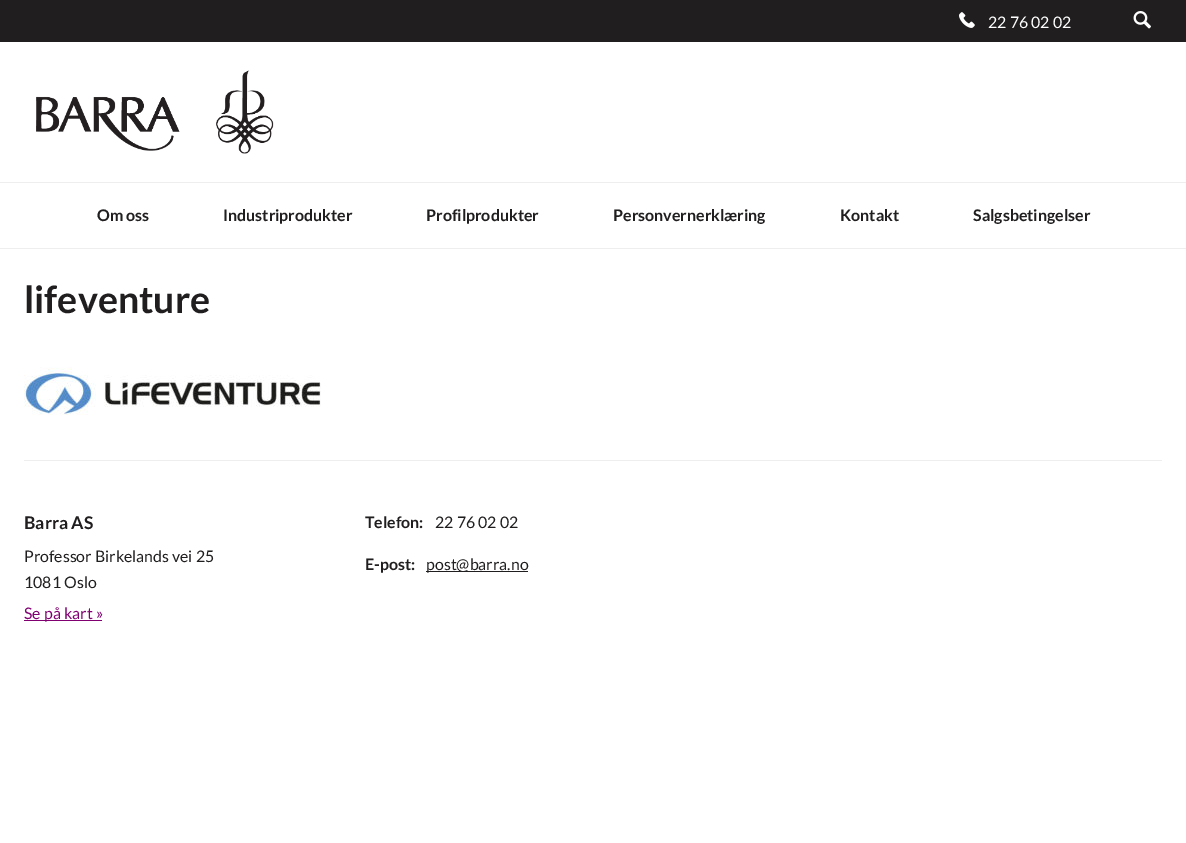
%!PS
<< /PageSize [1186 843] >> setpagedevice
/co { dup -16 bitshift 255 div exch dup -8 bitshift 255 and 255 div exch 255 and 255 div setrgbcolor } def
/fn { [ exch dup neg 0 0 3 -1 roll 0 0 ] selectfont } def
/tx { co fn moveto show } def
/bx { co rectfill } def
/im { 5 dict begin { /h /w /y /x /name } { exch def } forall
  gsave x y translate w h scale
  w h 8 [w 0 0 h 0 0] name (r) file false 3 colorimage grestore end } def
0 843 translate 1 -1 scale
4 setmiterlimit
0 0 1186 843 16#FFFFFF bx
0 0 1186 42 16#201E1F bx
(media/1.raw) 959 12 16 16 im
(media/2.raw) 1133 11 18 18 im
(media/3.raw) 36 70 238 84 im
0 182 1186 1 16#EEEEEE bx
0 248 1186 1 16#EEEEEE bx
(media/4.raw) 24 367 297 48 im
24 460 1138 1 16#EEEEEE bx
24 620 78 1 16#800071 bx
426 571 102 1 16#201E1F bx
(22 76 02 02) 988 28 /Lato-Regular 15.9 16#FFFFFF tx
(Om oss) 97 221 /Lato-Bold 16 16#201E1F tx
(Industriprodukter) 223 221 /Lato-Bold 16 16#201E1F tx
(Profilprodukter) 426 221 /Lato-Bold 16 16#201E1F tx
(Personvernerklæring) 613 221 /Lato-Bold 16 16#201E1F tx
(Kontakt) 840 221 /Lato-Bold 16 16#201E1F tx
(Salgsbetingelser) 973 221 /Lato-Bold 16 16#201E1F tx
(lifeventure) 24 313 /Lato-Bold 37.5 16#201E1F tx
(Barra AS) 24 529 /Lato-Bold 17.5 16#201E1F tx
(Professor Birkelands vei 25) 24 562 /Lato-Regular 15.9 16#201E1F tx
(1081 Oslo) 24 588 /Lato-Regular 15.9 16#201E1F tx
(Se på kart ») 24 619 /Lato-Regular 15.9 16#800071 tx
(Telefon:) 365 528 /Lato-Bold 15.9 16#201E1F tx
(22 76 02 02) 435 528 /Lato-Regular 15.9 16#201E1F tx
(E-post:) 365 570 /Lato-Bold 15.9 16#201E1F tx
(post@barra.no) 426 570 /Lato-Regular 15.9 16#201E1F tx
showpage
